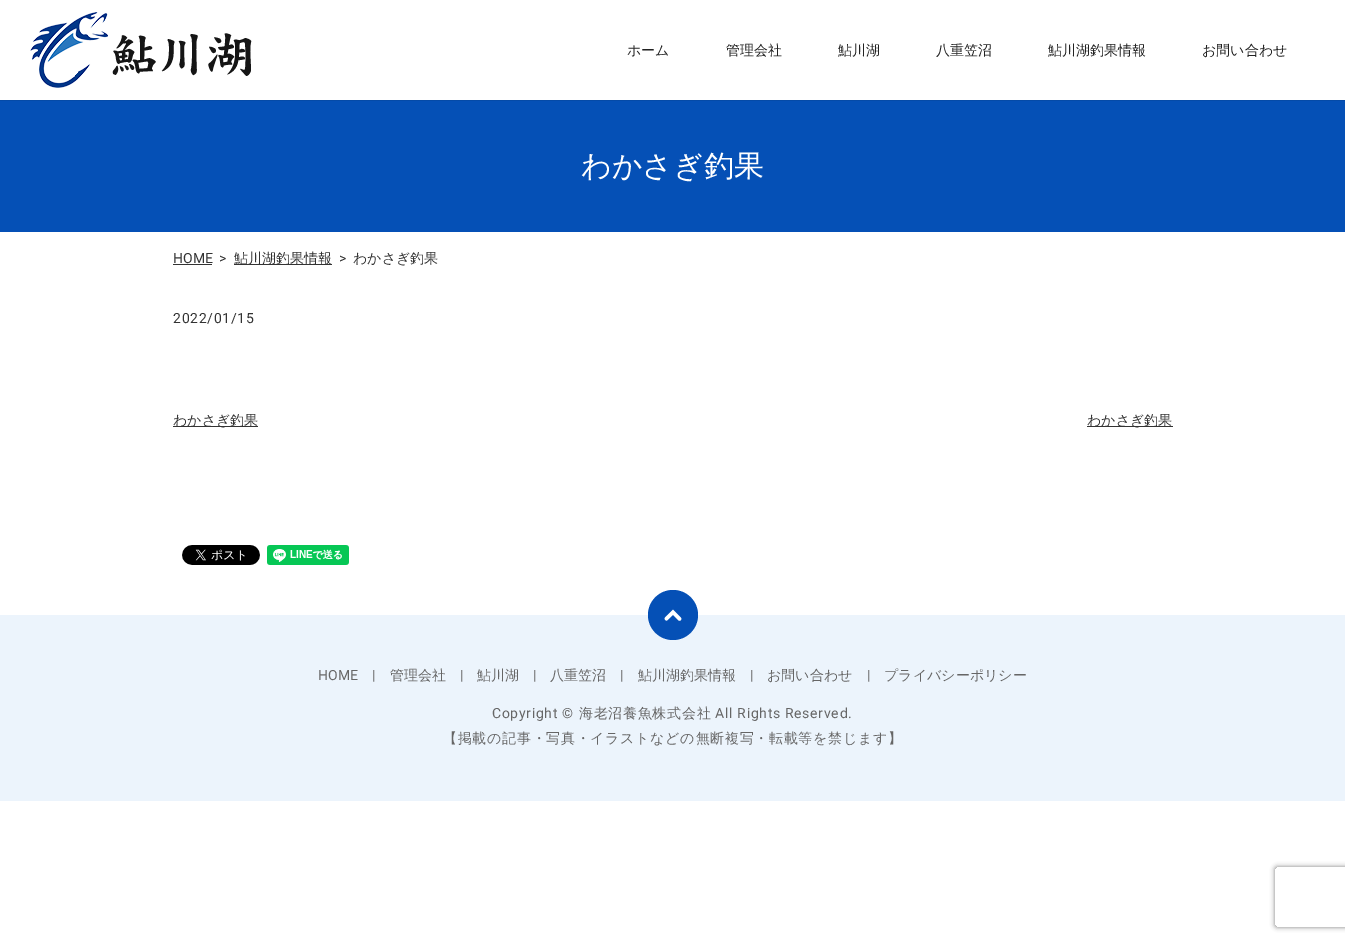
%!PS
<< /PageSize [1345 941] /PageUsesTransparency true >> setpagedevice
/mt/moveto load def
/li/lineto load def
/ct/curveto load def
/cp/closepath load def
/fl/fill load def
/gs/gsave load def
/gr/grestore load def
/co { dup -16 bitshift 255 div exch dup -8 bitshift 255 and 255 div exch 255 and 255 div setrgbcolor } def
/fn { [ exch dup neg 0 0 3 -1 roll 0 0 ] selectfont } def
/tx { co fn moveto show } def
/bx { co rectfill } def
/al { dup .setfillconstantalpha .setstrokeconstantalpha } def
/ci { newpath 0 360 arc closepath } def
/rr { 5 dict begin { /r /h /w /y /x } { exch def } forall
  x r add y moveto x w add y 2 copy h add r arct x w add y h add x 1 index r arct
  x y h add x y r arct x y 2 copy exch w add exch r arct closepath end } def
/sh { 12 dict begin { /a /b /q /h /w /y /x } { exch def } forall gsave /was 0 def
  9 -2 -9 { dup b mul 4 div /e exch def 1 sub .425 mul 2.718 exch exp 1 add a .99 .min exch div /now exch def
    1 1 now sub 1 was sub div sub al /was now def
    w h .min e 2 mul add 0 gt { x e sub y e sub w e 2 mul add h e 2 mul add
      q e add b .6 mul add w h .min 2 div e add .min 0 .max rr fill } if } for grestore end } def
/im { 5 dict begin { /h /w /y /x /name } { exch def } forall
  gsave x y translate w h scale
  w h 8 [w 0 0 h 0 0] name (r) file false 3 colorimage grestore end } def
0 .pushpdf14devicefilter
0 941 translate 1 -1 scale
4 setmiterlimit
0 0 1345 941 16#FFFFFF bx
0 100 1345 132 16#0550B6 bx
gs
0 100 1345 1 rectclip
16#000000 co
0 1 1345 100 0 .5 .1 sh
gr
(media/1.raw) 30 12 222 76 im
173 264 39 1 16#333333 bx
234 264 98 1 16#333333 bx
173 426 85 1 16#333333 bx
1087 426 86 1 16#333333 bx
(media/2.raw) 182 545 78 20 im
(media/3.raw) 267 545 82 20 im
0 615 1345 186 16#ECF4FC bx
16#0550B6 co
673 615 25 ci fl
(media/4.raw) 664 609 18 12 im
gs
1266 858 mt 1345 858 li 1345 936 li 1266 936 li cp 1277 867 mt 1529 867 li 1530 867 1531 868 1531 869 ct 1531 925 li 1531 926 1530 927 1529 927 ct 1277 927 li 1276 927 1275 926 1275 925 ct 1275 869 li 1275 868 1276 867 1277 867 ct cp eoclip newpath
16#808080 co
1275 867 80 60 2 2.5 1 sh
gr
(ホーム) 627 55 /WenQuanYiZenHei-Medium 14 16#222222 tx
(管理会社) 726 55 /WenQuanYiZenHei-Medium 14 16#222222 tx
(鮎川湖) 838 55 /WenQuanYiZenHei-Medium 14 16#222222 tx
(八重笠沼) 936 55 /WenQuanYiZenHei-Medium 14 16#222222 tx
(鮎川湖釣果情報) 1048 55 /WenQuanYiZenHei-Medium 14 16#222222 tx
(お問い合わせ) 1202 55 /WenQuanYiZenHei-Medium 14 16#222222 tx
(わかさぎ釣果) 581 176 /WenQuanYiZenHei-Medium 30 16#FFFFFF tx
(HOME) 173 263 /Roboto-Regular 14 16#333333 tx
(>) 219 263 /Roboto-Regular 14 16#333333 tx
(鮎川湖釣果情報) 234 263 /WenQuanYiZenHei-Medium 14 16#333333 tx
(>) 339 263 /Roboto-Regular 14 16#333333 tx
(わかさぎ釣果) 353 263 /WenQuanYiZenHei-Medium 14 16#333333 tx
/Roboto-Regular 14 fn
173 323 mt .7 0 (2022/01/15) ashow
(わかさぎ釣果) 173 425 /WenQuanYiZenHei-Medium 14 16#333333 tx
(わかさぎ釣果) 1087 425 /WenQuanYiZenHei-Medium 14 16#333333 tx
(HOME) 318 680 /Roboto-Regular 14 16#666666 tx
(|) 372 680 /Roboto-Regular 14 16#666666 tx
(管理会社) 390 680 /WenQuanYiZenHei-Medium 14 16#666666 tx
(|) 460 680 /Roboto-Regular 14 16#666666 tx
(鮎川湖) 477 680 /WenQuanYiZenHei-Medium 14 16#666666 tx
(|) 533 680 /Roboto-Regular 14 16#666666 tx
(八重笠沼) 550 680 /WenQuanYiZenHei-Medium 14 16#666666 tx
(|) 620 680 /Roboto-Regular 14 16#666666 tx
(鮎川湖釣果情報) 638 680 /WenQuanYiZenHei-Medium 14 16#666666 tx
(|) 750 680 /Roboto-Regular 14 16#666666 tx
(お問い合わせ) 767 680 /WenQuanYiZenHei-Medium 14 16#666666 tx
(|) 867 680 /Roboto-Regular 14 16#666666 tx
(プライバシーポリシー) 884 680 /WenQuanYiZenHei-Medium 14 16#666666 tx
/Roboto-Regular 14 fn
492 718 mt .7 0 (Copyright ©) ashow
/WenQuanYiZenHei-Medium 14 fn
579 718 mt .7 0 (海老沼養魚株式会社) ashow
/Roboto-Regular 14 fn
715 718 mt .7 0 (All Rights Reserved.) ashow
/WenQuanYiZenHei-Medium 14 fn
443 743 mt .7 0 (【掲載の記事・写真・イラストなどの無断複写・転載等を禁じます】) ashow
.poppdf14devicefilter showpage
